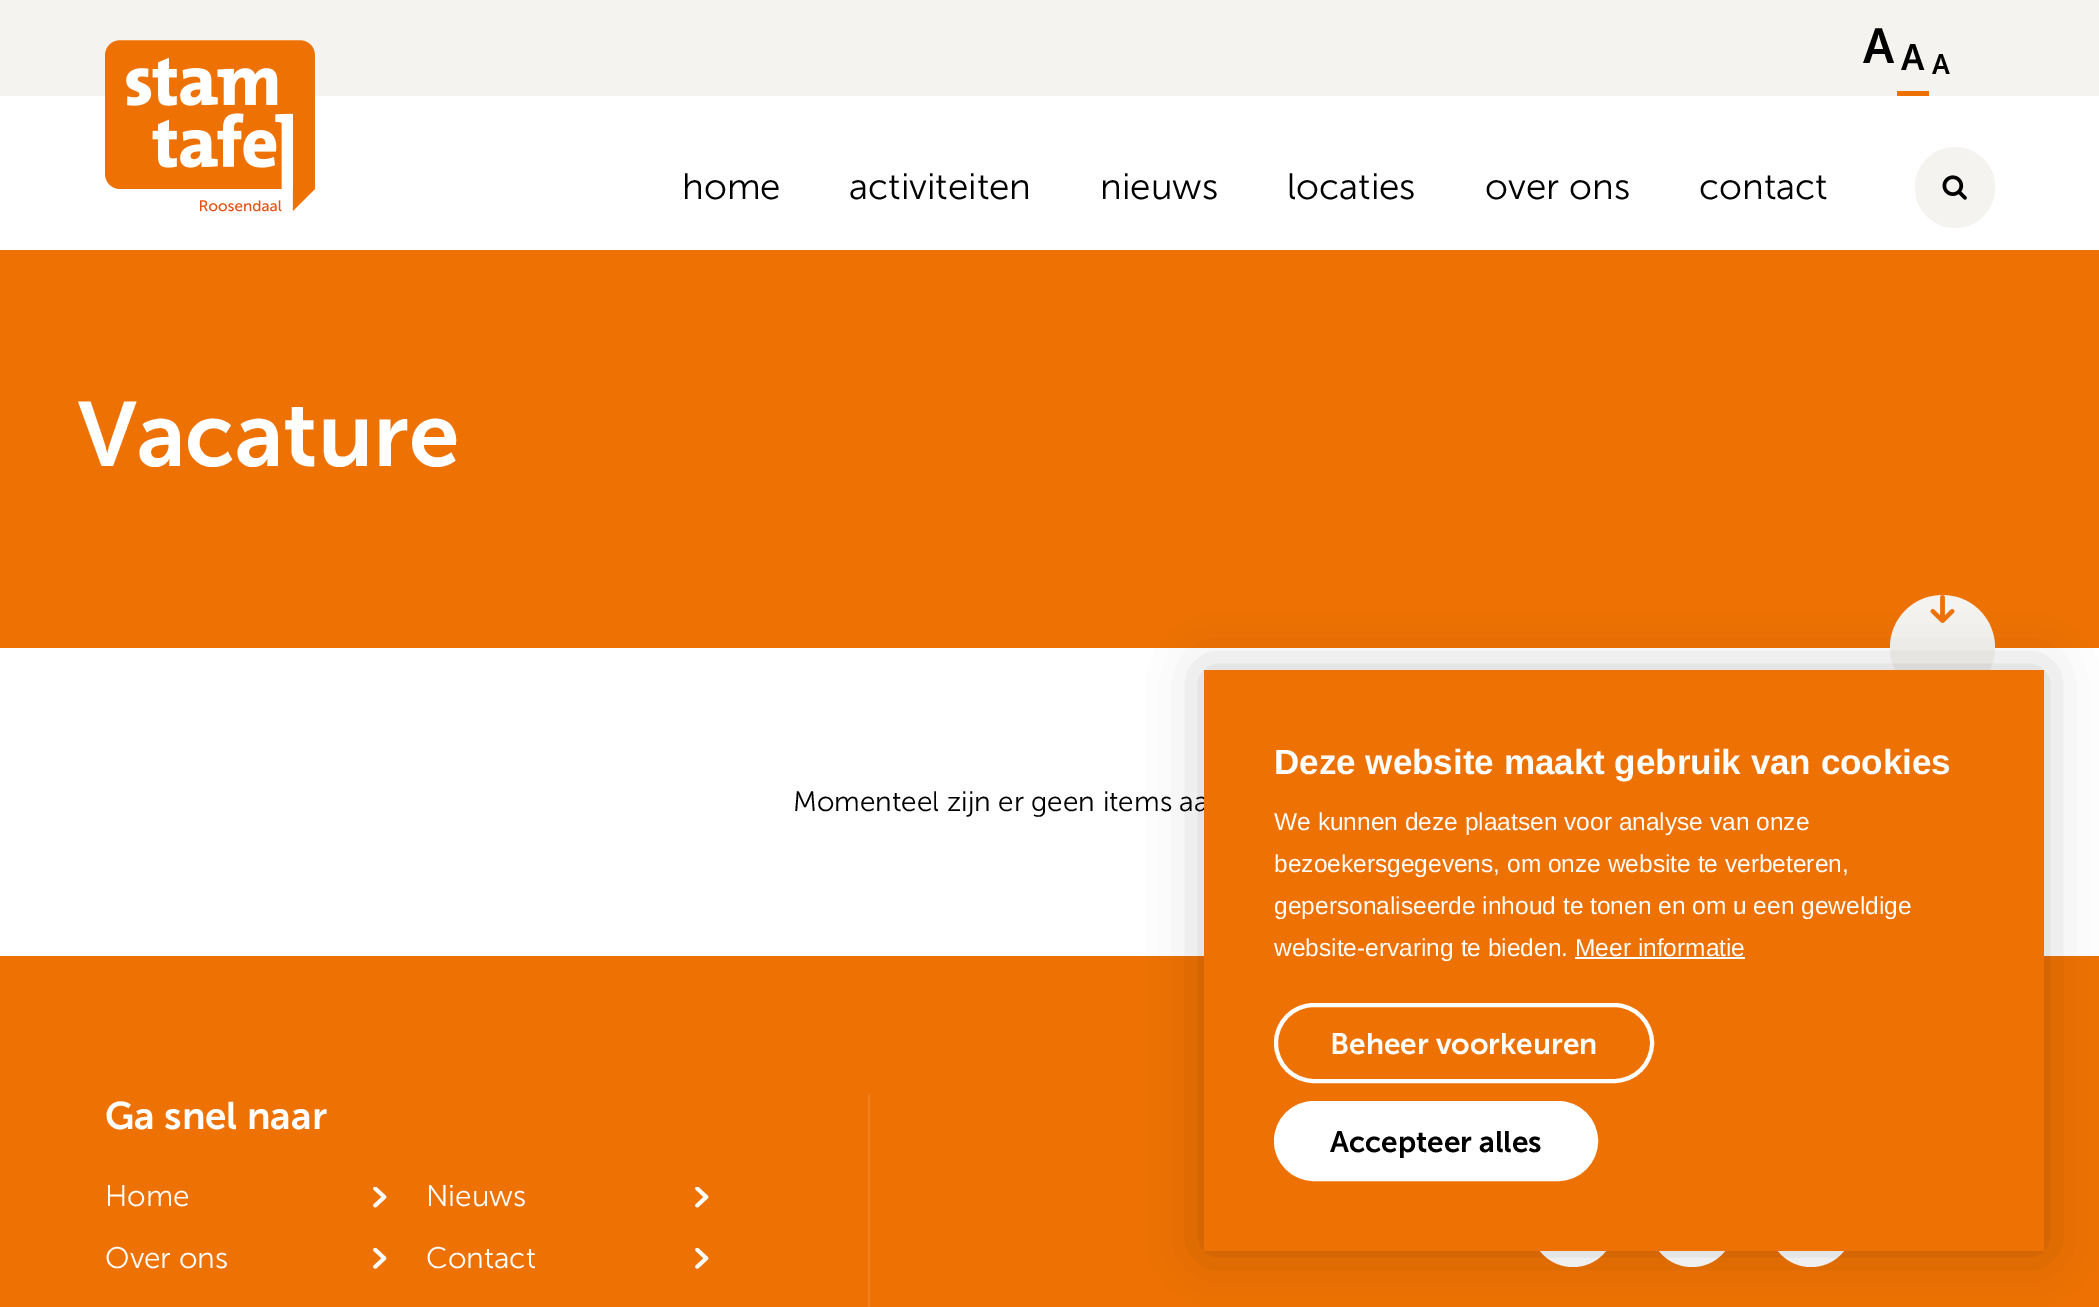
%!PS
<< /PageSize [2099 1307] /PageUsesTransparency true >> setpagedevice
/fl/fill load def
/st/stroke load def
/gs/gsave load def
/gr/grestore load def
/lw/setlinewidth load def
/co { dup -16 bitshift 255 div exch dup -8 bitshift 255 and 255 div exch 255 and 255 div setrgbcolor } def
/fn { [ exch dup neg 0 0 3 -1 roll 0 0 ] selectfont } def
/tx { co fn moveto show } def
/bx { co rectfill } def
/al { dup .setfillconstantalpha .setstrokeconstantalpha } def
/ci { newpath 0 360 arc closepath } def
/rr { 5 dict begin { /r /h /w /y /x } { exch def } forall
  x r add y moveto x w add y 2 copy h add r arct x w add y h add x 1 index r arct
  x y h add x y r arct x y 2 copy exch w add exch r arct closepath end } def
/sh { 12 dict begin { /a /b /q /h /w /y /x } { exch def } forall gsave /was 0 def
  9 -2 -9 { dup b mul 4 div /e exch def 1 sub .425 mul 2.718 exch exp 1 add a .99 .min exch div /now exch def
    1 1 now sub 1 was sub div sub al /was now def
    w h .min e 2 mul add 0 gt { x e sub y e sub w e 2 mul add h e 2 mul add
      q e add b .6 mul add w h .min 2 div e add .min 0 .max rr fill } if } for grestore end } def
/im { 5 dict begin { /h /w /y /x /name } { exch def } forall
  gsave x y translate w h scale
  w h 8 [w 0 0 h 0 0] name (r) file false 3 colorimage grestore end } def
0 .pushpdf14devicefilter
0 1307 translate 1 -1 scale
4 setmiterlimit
0 0 2099 1307 16#FFFFFF bx
0 0 2099 96 16#F4F3F0 bx
1897 91 32 5 16#EE7203 bx
(media/1.raw) 105 40 210 172 im
16#F4F3F0 co
1915 147 80 81 40 rr fl
(media/2.raw) 1942 175 25 25 im
0 250 2099 398 16#EE7203 bx
16#F4F3F0 co
1942.5 647.5 52.5 ci fl
(media/3.raw) 1930 595 25 28 im
0 956 2099 351 16#EE7203 bx
868 1094 2 213 16#F0801C bx
(media/4.raw) 373 1187 14 21 im
(media/4.raw) 695 1187 14 21 im
(media/5.raw) 373 1248 14 21 im
(media/5.raw) 695 1248 14 21 im
16#FFFFFF co
1573 1225 42 ci fl
1692 1225 42 ci fl
1811 1225 42 ci fl
16#000000 co
1204 670 840 581 0 26 .2 sh
(A) 1863 63 /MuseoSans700-SemiBold 49 16#000000 tx
(A) 1901 70 /MuseoSans700-SemiBold 36.75 16#000000 tx
(A) 1932 74 /MuseoSans700-SemiBold 28 16#000000 tx
(home) 682 199 /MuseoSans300-Light 36.75 16#000000 tx
(activiteiten) 849 199 /MuseoSans300-Light 36.75 16#000000 tx
(nieuws) 1100 199 /MuseoSans300-Light 36.75 16#000000 tx
(locaties) 1287 199 /MuseoSans300-Light 36.75 16#000000 tx
(over ons) 1485 199 /MuseoSans300-Light 36.75 16#000000 tx
(contact) 1699 199 /MuseoSans300-Light 36.75 16#000000 tx
(Vacature) 78 466 /MuseoSans700-SemiBold 91 16#FFFFFF tx
(Momenteel zijn er geen items aa) 793 811 /MuseoSans300-Light 28 16#000000 tx
(Ga snel naar) 105 1129 /MuseoSans700-SemiBold 38.5 16#FFFFFF tx
(Home) 105 1206 /MuseoSans300-Light 29.75 16#FFFFFF tx
(Nieuws) 426 1206 /MuseoSans300-Light 29.75 16#FFFFFF tx
(Over ons) 105 1268 /MuseoSans300-Light 29.75 16#FFFFFF tx
(Contact) 426 1268 /MuseoSans300-Light 29.75 16#FFFFFF tx
1204 670 840 581 16#EE7203 bx
(Deze website maakt gebruik van cookies) 1274 774 /LiberationSans-Bold 35 16#FFFFFF tx
(We kunnen deze plaatsen voor analyse van onze) 1274 830 /LiberationSans-Regular 24.5 16#FFFFFF tx
(bezoekersgegevens, om onze website te verbeteren,) 1274 872 /LiberationSans-Regular 24.5 16#FFFFFF tx
(gepersonaliseerde inhoud te tonen en om u een geweldige) 1274 914 /LiberationSans-Regular 24.5 16#FFFFFF tx
(website-ervaring te bieden. Meer informatie) 1274 956 /LiberationSans-Regular 24.5 16#FFFFFF tx
1575 957 170 2 16#FFFFFF bx
4 lw
1276 1005 376 76 38 rr st
(Beheer voorkeuren) 1330 1054 /MuseoSans700-SemiBold 29.75 16#FFFFFF tx
1276 1103 320 76 38 rr gs fl gr
st
(Accepteer alles) 1330 1152 /MuseoSans700-SemiBold 29.75 16#000000 tx
.poppdf14devicefilter showpage
